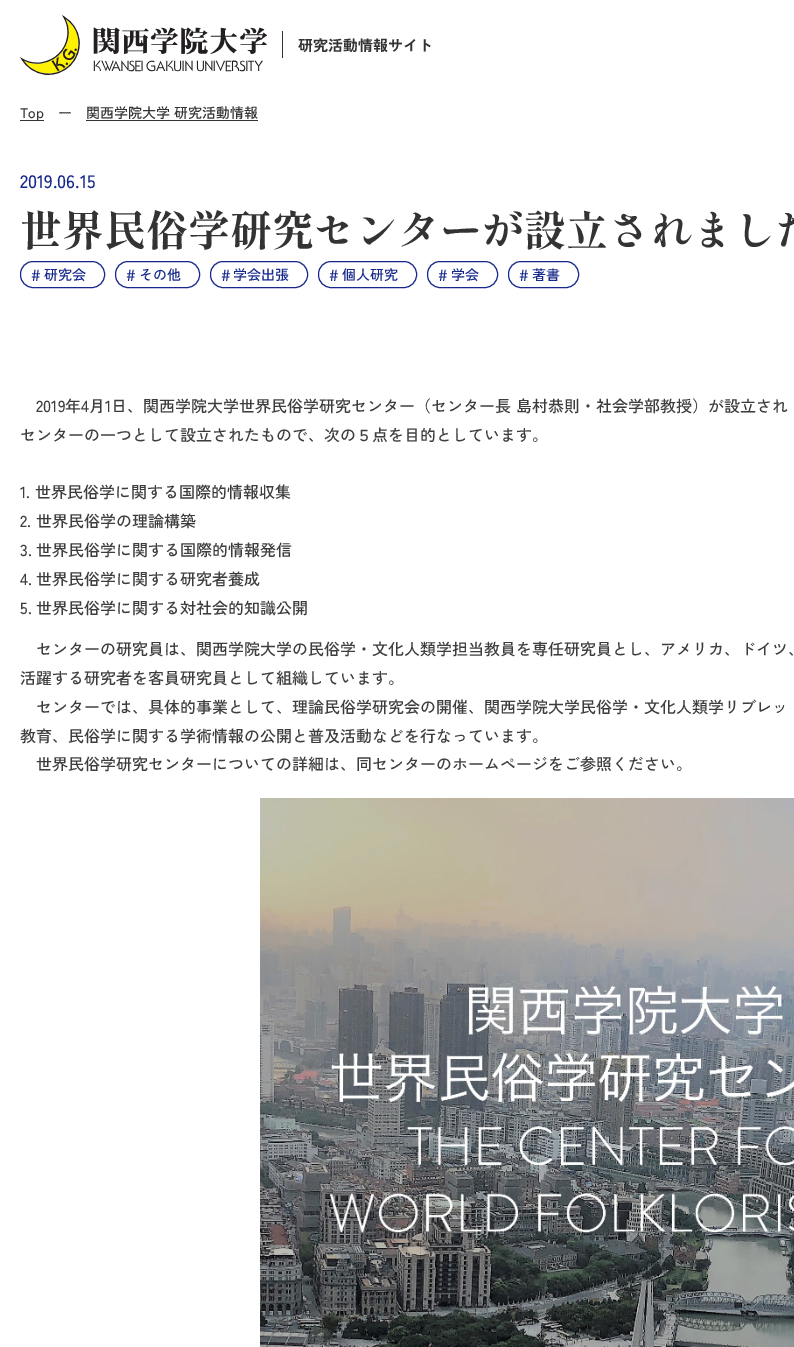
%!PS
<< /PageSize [794 1347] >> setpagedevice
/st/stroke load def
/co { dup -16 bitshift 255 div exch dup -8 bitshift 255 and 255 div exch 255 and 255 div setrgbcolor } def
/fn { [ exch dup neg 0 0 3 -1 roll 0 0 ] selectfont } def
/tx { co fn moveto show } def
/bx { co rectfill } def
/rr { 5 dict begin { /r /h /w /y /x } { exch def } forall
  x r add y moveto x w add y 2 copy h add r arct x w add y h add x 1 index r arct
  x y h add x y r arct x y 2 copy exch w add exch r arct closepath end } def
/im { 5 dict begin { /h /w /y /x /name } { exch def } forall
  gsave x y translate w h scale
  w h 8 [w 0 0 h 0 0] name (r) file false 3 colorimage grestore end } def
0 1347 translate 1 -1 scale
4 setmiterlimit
0 0 794 1347 16#FFFFFF bx
(media/1.raw) 20 15 247 60 im
282 31 1 27 16#333333 bx
20 120 24 1 16#333333 bx
86 120 172 1 16#333333 bx
16#16288B co
20.5 261.5 84 26 12.5 rr st
115.5 261.5 84 26 12.5 rr st
210.5 261.5 97 26 12.5 rr st
318.5 261.5 98 26 12.5 rr st
427.5 261.5 70 26 12.5 rr st
508.5 261.5 70 26 12.5 rr st
(media/2.raw) 260 798 534 549 im
(研究活動情報サイト) 298 51 /ZenKakuGothicNew-Bold 15 16#333333 tx
(Top) 20 118 /ZenKakuGothicNew-Medium 14 16#333333 tx
(ー) 58 118 /ZenKakuGothicNew-Medium 14 16#333333 tx
(関西学院大学 研究活動情報) 86 118 /ZenKakuGothicNew-Medium 14 16#333333 tx
(2019.06.15) 20 188 /ZenKakuGothicNew-Medium 18 16#16288B tx
(世界民俗学研究センターが設立されました) 20 246 /ShipporiMincho-Bold 42 16#333333 tx
(#) 31 281 /ZenKakuGothicNew-Medium 16 16#16288B tx
(研究会) 44 280 /ZenKakuGothicNew-Medium 14 16#16288B tx
(#) 126 281 /ZenKakuGothicNew-Medium 16 16#16288B tx
(その他) 139 280 /ZenKakuGothicNew-Medium 14 16#16288B tx
(#) 221 281 /ZenKakuGothicNew-Medium 16 16#16288B tx
(学会出張) 233 280 /ZenKakuGothicNew-Medium 14 16#16288B tx
(#) 329 281 /ZenKakuGothicNew-Medium 16 16#16288B tx
(個人研究) 342 280 /ZenKakuGothicNew-Medium 14 16#16288B tx
(#) 438 281 /ZenKakuGothicNew-Medium 16 16#16288B tx
(学会) 451 280 /ZenKakuGothicNew-Medium 14 16#16288B tx
(#) 519 281 /ZenKakuGothicNew-Medium 16 16#16288B tx
(著書) 532 280 /ZenKakuGothicNew-Medium 14 16#16288B tx
(2019年4月1日、関西学院大学世界民俗学研究センター（センター長 島村恭則・社会学部教授）が設立され) 36 412 /ZenKakuGothicNew-Medium 16 16#3D3D3D tx
(センターの一つとして設立されたもので、次の５点を目的としています。) 20 441 /ZenKakuGothicNew-Medium 16 16#3D3D3D tx
(1. 世界民俗学に関する国際的情報収集) 20 498 /ZenKakuGothicNew-Medium 16 16#3D3D3D tx
(2. 世界民俗学の理論構築) 20 527 /ZenKakuGothicNew-Medium 16 16#3D3D3D tx
(3. 世界民俗学に関する国際的情報発信) 20 556 /ZenKakuGothicNew-Medium 16 16#3D3D3D tx
(4. 世界民俗学に関する研究者養成) 20 585 /ZenKakuGothicNew-Medium 16 16#3D3D3D tx
(5. 世界民俗学に関する対社会的知識公開) 20 614 /ZenKakuGothicNew-Medium 16 16#3D3D3D tx
(センターの研究員は、関西学院大学の民俗学・文化人類学担当教員を専任研究員とし、アメリカ、ドイツ、) 36 655 /ZenKakuGothicNew-Medium 16 16#3D3D3D tx
(活躍する研究者を客員研究員として組織しています。) 20 684 /ZenKakuGothicNew-Medium 16 16#3D3D3D tx
(センターでは、具体的事業として、理論民俗学研究会の開催、関西学院大学民俗学・文化人類学リブレッ) 36 713 /ZenKakuGothicNew-Medium 16 16#3D3D3D tx
(教育、民俗学に関する学術情報の公開と普及活動などを行なっています。) 20 742 /ZenKakuGothicNew-Medium 16 16#3D3D3D tx
(世界民俗学研究センターについての詳細は、同センターのホームページをご参照ください。) 36 770 /ZenKakuGothicNew-Medium 16 16#3D3D3D tx
showpage
